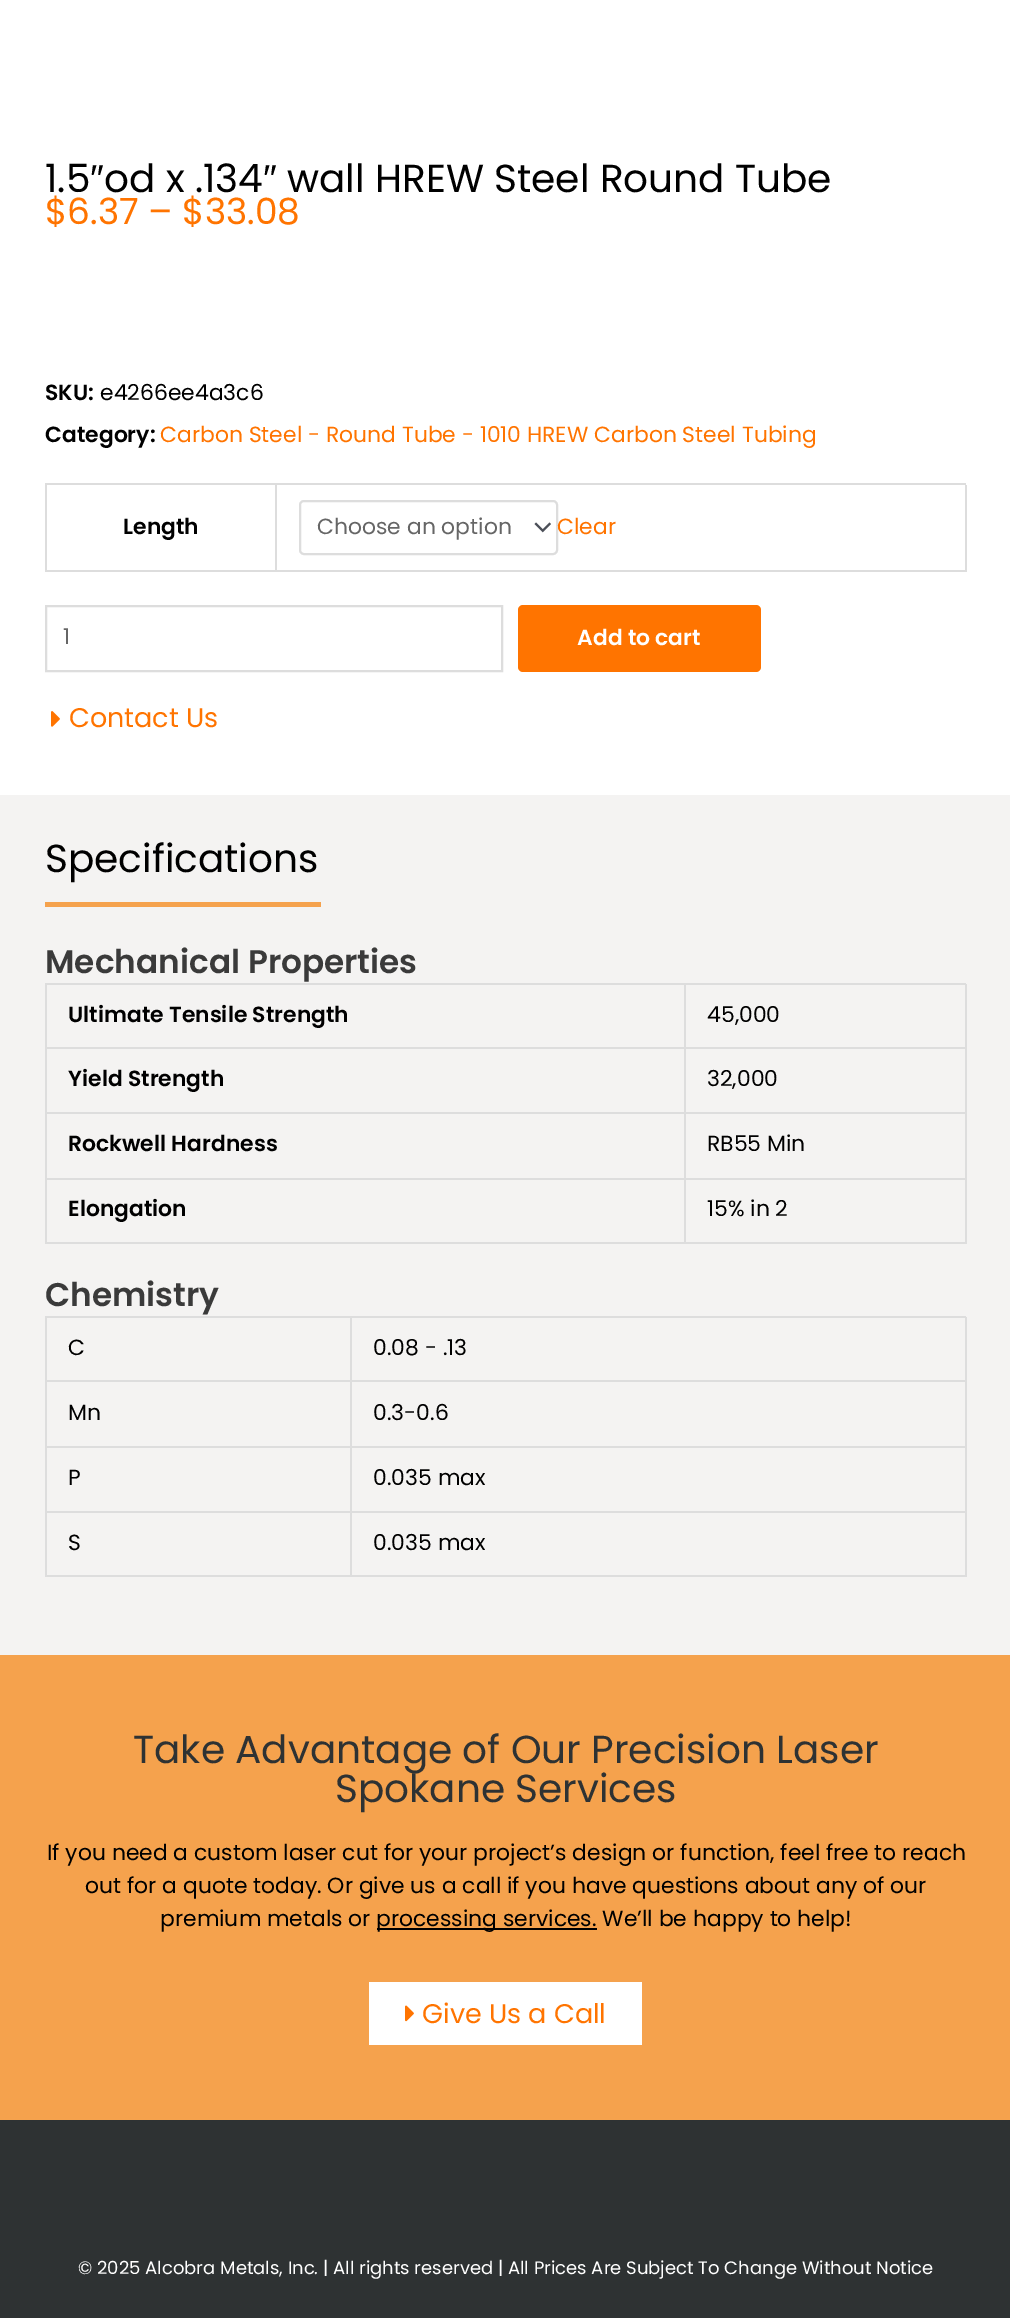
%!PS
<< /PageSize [1010 2318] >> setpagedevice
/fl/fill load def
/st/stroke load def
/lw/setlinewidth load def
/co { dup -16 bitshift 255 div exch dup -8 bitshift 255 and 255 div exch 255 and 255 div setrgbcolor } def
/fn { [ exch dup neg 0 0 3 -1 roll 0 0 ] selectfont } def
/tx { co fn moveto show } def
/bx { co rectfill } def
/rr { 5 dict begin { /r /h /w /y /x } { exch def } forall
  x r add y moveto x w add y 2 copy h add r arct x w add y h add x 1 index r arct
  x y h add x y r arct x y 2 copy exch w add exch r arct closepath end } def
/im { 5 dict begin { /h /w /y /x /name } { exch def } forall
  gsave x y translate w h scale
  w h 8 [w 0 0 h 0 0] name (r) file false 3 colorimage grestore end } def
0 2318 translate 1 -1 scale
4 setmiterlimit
0 0 1010 2318 16#FFFFFF bx
45 483 921 2 16#DDDDDD bx
45 483 2 89 16#DDDDDD bx
275 485 2 87 16#DDDDDD bx
47 570 229 2 16#DDDDDD bx
965 485 2 87 16#DDDDDD bx
276 570 690 2 16#DDDDDD bx
(media/1.raw) 534 522 17 11 im
2 lw
300 501 257 53 4 rr st
46 606 456 65 rectstroke
16#FF7400 co
518 605 243 67 5 rr fl
(media/2.raw) 51 711 9 16 im
0 795 1010 860 16#F4F3F2 bx
45 902 276 5 16#F5A24D bx
45 983 921 2 16#DDDDDD bx
45 983 2 261 16#DDDDDD bx
684 984 2 129 16#DDDDDD bx
47 1047 639 2 16#DDDDDD bx
965 984 2 129 16#DDDDDD bx
686 1047 280 2 16#DDDDDD bx
47 1112 919 2 16#DDDDDD bx
684 1113 2 66 16#DDDDDD bx
47 1178 639 2 16#DDDDDD bx
965 1113 2 66 16#DDDDDD bx
686 1178 280 2 16#DDDDDD bx
684 1179 2 65 16#DDDDDD bx
47 1242 639 2 16#DDDDDD bx
965 1179 2 65 16#DDDDDD bx
686 1242 280 2 16#DDDDDD bx
45 1316 921 2 16#DDDDDD bx
45 1316 2 261 16#DDDDDD bx
350 1317 2 195 16#DDDDDD bx
47 1380 304 2 16#DDDDDD bx
965 1317 2 195 16#DDDDDD bx
351 1380 615 2 16#DDDDDD bx
47 1446 919 2 16#DDDDDD bx
47 1511 919 2 16#DDDDDD bx
350 1512 2 65 16#DDDDDD bx
47 1575 304 2 16#DDDDDD bx
965 1512 2 65 16#DDDDDD bx
351 1575 615 2 16#DDDDDD bx
0 1655 1010 465 16#F5A24D bx
377 1928 220 2 16#000000 bx
369 1982 273 63 16#FFFFFF bx
(media/3.raw) 405 2005 9 17 im
0 2120 1010 198 16#2E3233 bx
(1.5) 45 192 /Poppins-Regular 39 16#000000 tx
(″) 90 192 /LiberationSans-Regular 39 16#000000 tx
(od x .134) 104 192 /Poppins-Regular 39 16#000000 tx
(″) 263 192 /LiberationSans-Regular 39 16#000000 tx
(wall HREW Steel Round Tube) 287 192 /Poppins-Regular 39 16#000000 tx
($6.37 – $33.08) 45 224 /Poppins-Regular 36 16#FF7400 tx
(SKU:) 45 400 /Poppins-SemiBold 21.9 16#000000 tx
(e4266ee4a3c6) 100 400 /Poppins-Regular 21.9 16#000000 tx
(Category:) 45 442 /Poppins-SemiBold 21.9 16#000000 tx
(Carbon Steel - Round Tube - 1010 HREW Carbon Steel Tubing) 160 442 /Poppins-Regular 21.9 16#FF7400 tx
(Length) 123 534 /Poppins-SemiBold 21.9 16#000000 tx
(Choose an option) 317 534 /Poppins-Regular 21.9 16#666666 tx
(Clear) 557 534 /Poppins-Regular 21.9 16#FF7400 tx
(1) 63 644 /Poppins-Regular 21.9 16#666666 tx
(Add to cart) 577 645 /Poppins-SemiBold 21.9 16#FFFFFF tx
(Contact Us) 69 727 /Poppins-Regular 27 16#FF7400 tx
(Specifications) 45 872 /Poppins-Regular 39 16#000000 tx
(Mechanical Properties) 45 973 /Poppins-SemiBold 32.75 16#3A3A3A tx
(Ultimate Tensile Strength) 68 1022 /Poppins-SemiBold 21.9 16#000000 tx
(45,000) 707 1022 /Poppins-Regular 21.9 16#000000 tx
(Yield Strength) 68 1086 /Poppins-SemiBold 21.9 16#000000 tx
(32,000) 707 1086 /Poppins-Regular 21.9 16#000000 tx
(Rockwell Hardness) 68 1151 /Poppins-SemiBold 21.9 16#000000 tx
(RB55 Min) 707 1151 /Poppins-Regular 21.9 16#000000 tx
(Elongation) 68 1216 /Poppins-SemiBold 21.9 16#000000 tx
(15% in 2) 707 1216 /Poppins-Regular 21.9 16#000000 tx
(Chemistry) 45 1306 /Poppins-SemiBold 32.75 16#3A3A3A tx
(C) 68 1355 /Poppins-Regular 21.9 16#000000 tx
(0.08 - .13) 373 1355 /Poppins-Regular 21.9 16#000000 tx
(Mn) 68 1420 /Poppins-Regular 21.9 16#000000 tx
(0.3-0.6) 373 1420 /Poppins-Regular 21.9 16#000000 tx
(P) 68 1485 /Poppins-Regular 21.9 16#000000 tx
(0.035 max) 373 1485 /Poppins-Regular 21.9 16#000000 tx
(S) 68 1550 /Poppins-Regular 21.9 16#000000 tx
(0.035 max) 373 1550 /Poppins-Regular 21.9 16#000000 tx
(Take Advantage of Our Precision Laser) 133 1763 /Poppins-Regular 39 16#2E3233 tx
(Spokane Services) 335 1802 /Poppins-Regular 39 16#2E3233 tx
(If you need a custom laser cut for your project’s design or function, feel free to reach) 47 1860 /Poppins-Regular 21.9 16#000000 tx
(out for a quote today. Or give us a call if you have questions about any of our) 85 1893 /Poppins-Regular 21.9 16#000000 tx
(premium metals or) 160 1926 /Poppins-Regular 21.9 16#000000 tx
(processing services. We’ll be happy to help!) 376 1926 /Poppins-Regular 21.9 16#000000 tx
(Give Us a Call) 422 2023 /Poppins-Regular 27 16#FF7400 tx
(© 2025 Alcobra Metals, Inc. | All rights reserved | All Prices Are Subject To Change Without Notice) 78 2274 /Poppins-Regular 18 16#FFFFFF tx
showpage
